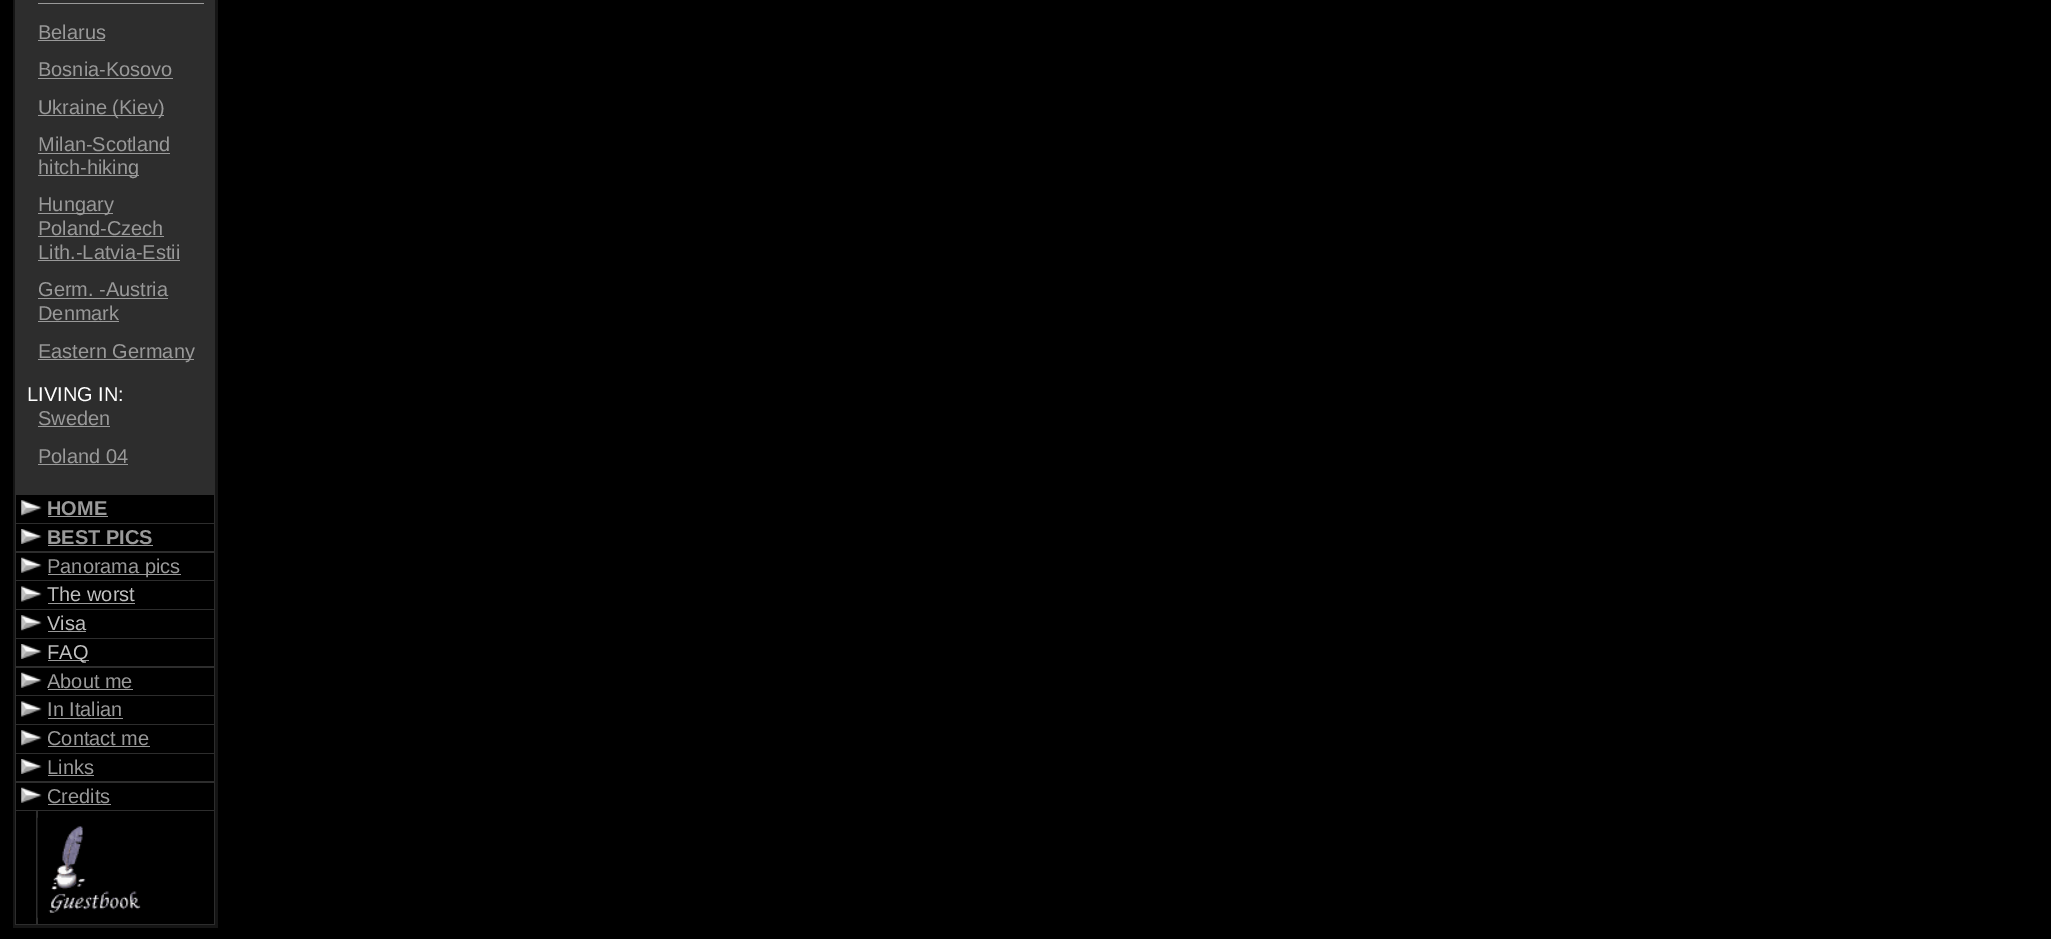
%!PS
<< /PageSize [2051 939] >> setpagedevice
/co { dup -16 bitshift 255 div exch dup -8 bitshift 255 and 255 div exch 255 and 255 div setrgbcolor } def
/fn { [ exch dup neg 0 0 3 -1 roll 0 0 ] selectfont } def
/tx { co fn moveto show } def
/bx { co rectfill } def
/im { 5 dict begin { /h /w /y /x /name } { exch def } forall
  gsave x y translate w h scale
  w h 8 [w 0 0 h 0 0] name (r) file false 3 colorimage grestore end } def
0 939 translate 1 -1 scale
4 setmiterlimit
0 0 2051 939 16#000000 bx
13 0 205 928 16#151515 bx
15 0 200 925 16#2D2D2D bx
38 3 166 1 16#999999 bx
38 40 67 1 16#999999 bx
38 78 135 1 16#999999 bx
38 115 126 1 16#999999 bx
38 153 132 1 16#999999 bx
38 175 101 1 16#999999 bx
38 213 75 1 16#999999 bx
38 236 126 1 16#999999 bx
38 260 142 1 16#999999 bx
38 298 130 1 16#999999 bx
38 321 81 1 16#999999 bx
38 359 156 1 16#999999 bx
38 426 72 1 16#999999 bx
38 464 90 1 16#999999 bx
16 495 198 28 16#000000 bx
(media/1.raw) 21 500 21 16 im
48 516 60 1 16#999999 bx
16 524 198 27 16#000000 bx
(media/2.raw) 21 529 21 15 im
48 545 105 1 16#999999 bx
16 553 198 27 16#000000 bx
(media/3.raw) 21 557 21 16 im
48 574 133 1 16#999999 bx
16 581 198 28 16#000000 bx
(media/4.raw) 21 586 21 16 im
48 603 87 1 16#999999 bx
16 610 198 28 16#000000 bx
(media/1.raw) 21 615 21 16 im
48 631 38 1 16#999999 bx
16 639 198 27 16#000000 bx
(media/2.raw) 21 644 21 15 im
48 660 41 1 16#999999 bx
16 668 198 27 16#000000 bx
(media/3.raw) 21 672 21 16 im
48 689 85 1 16#999999 bx
16 696 198 28 16#000000 bx
(media/4.raw) 21 701 21 16 im
48 718 75 1 16#999999 bx
16 725 198 28 16#000000 bx
(media/1.raw) 21 730 21 16 im
48 746 102 1 16#999999 bx
16 754 198 27 16#000000 bx
(media/2.raw) 21 759 21 15 im
48 775 46 1 16#999999 bx
16 783 198 27 16#000000 bx
(media/3.raw) 21 787 21 16 im
48 804 63 1 16#999999 bx
16 811 20 113 16#000000 bx
38 811 176 113 16#000000 bx
(media/5.raw) 37 817 104 101 im
(Belarus) 38 39 /LiberationSans-Regular 20 16#999999 tx
(Bosnia-Kosovo) 38 76 /LiberationSans-Regular 20 16#999999 tx
(Ukraine \(Kiev\)) 38 114 /LiberationSans-Regular 20 16#999999 tx
(Milan-Scotland) 38 151 /LiberationSans-Regular 20 16#999999 tx
(hitch-hiking) 38 174 /LiberationSans-Regular 20 16#999999 tx
(Hungary) 38 211 /LiberationSans-Regular 20 16#999999 tx
(Poland-Czech) 38 235 /LiberationSans-Regular 20 16#999999 tx
(Lith.-Latvia-Estii) 38 259 /LiberationSans-Regular 20 16#999999 tx
(Germ. -Austria) 38 296 /LiberationSans-Regular 20 16#999999 tx
(Denmark) 38 320 /LiberationSans-Regular 20 16#999999 tx
(Eastern Germany) 38 358 /LiberationSans-Regular 20 16#999999 tx
(LIVING IN:) 27 401 /LiberationSans-Regular 20 16#FFFFFF tx
(Sweden) 38 425 /LiberationSans-Regular 20 16#999999 tx
(Poland 04) 38 463 /LiberationSans-Regular 20 16#999999 tx
(HOME) 47 515 /LiberationSans-Bold 20 16#999999 tx
(BEST PICS) 47 544 /LiberationSans-Bold 20 16#999999 tx
(Panorama pics) 47 573 /LiberationSans-Regular 20 16#999999 tx
(The worst) 47 601 /LiberationSans-Regular 20 16#C0C0C0 tx
(Visa) 47 630 /LiberationSans-Regular 20 16#C0C0C0 tx
(FAQ) 47 659 /LiberationSans-Regular 20 16#C0C0C0 tx
(About me) 47 688 /LiberationSans-Regular 20 16#999999 tx
(In Italian) 47 716 /LiberationSans-Regular 20 16#999999 tx
(Contact me) 47 745 /LiberationSans-Regular 20 16#999999 tx
(Links) 47 774 /LiberationSans-Regular 20 16#999999 tx
(Credits) 47 803 /LiberationSans-Regular 20 16#999999 tx
showpage
